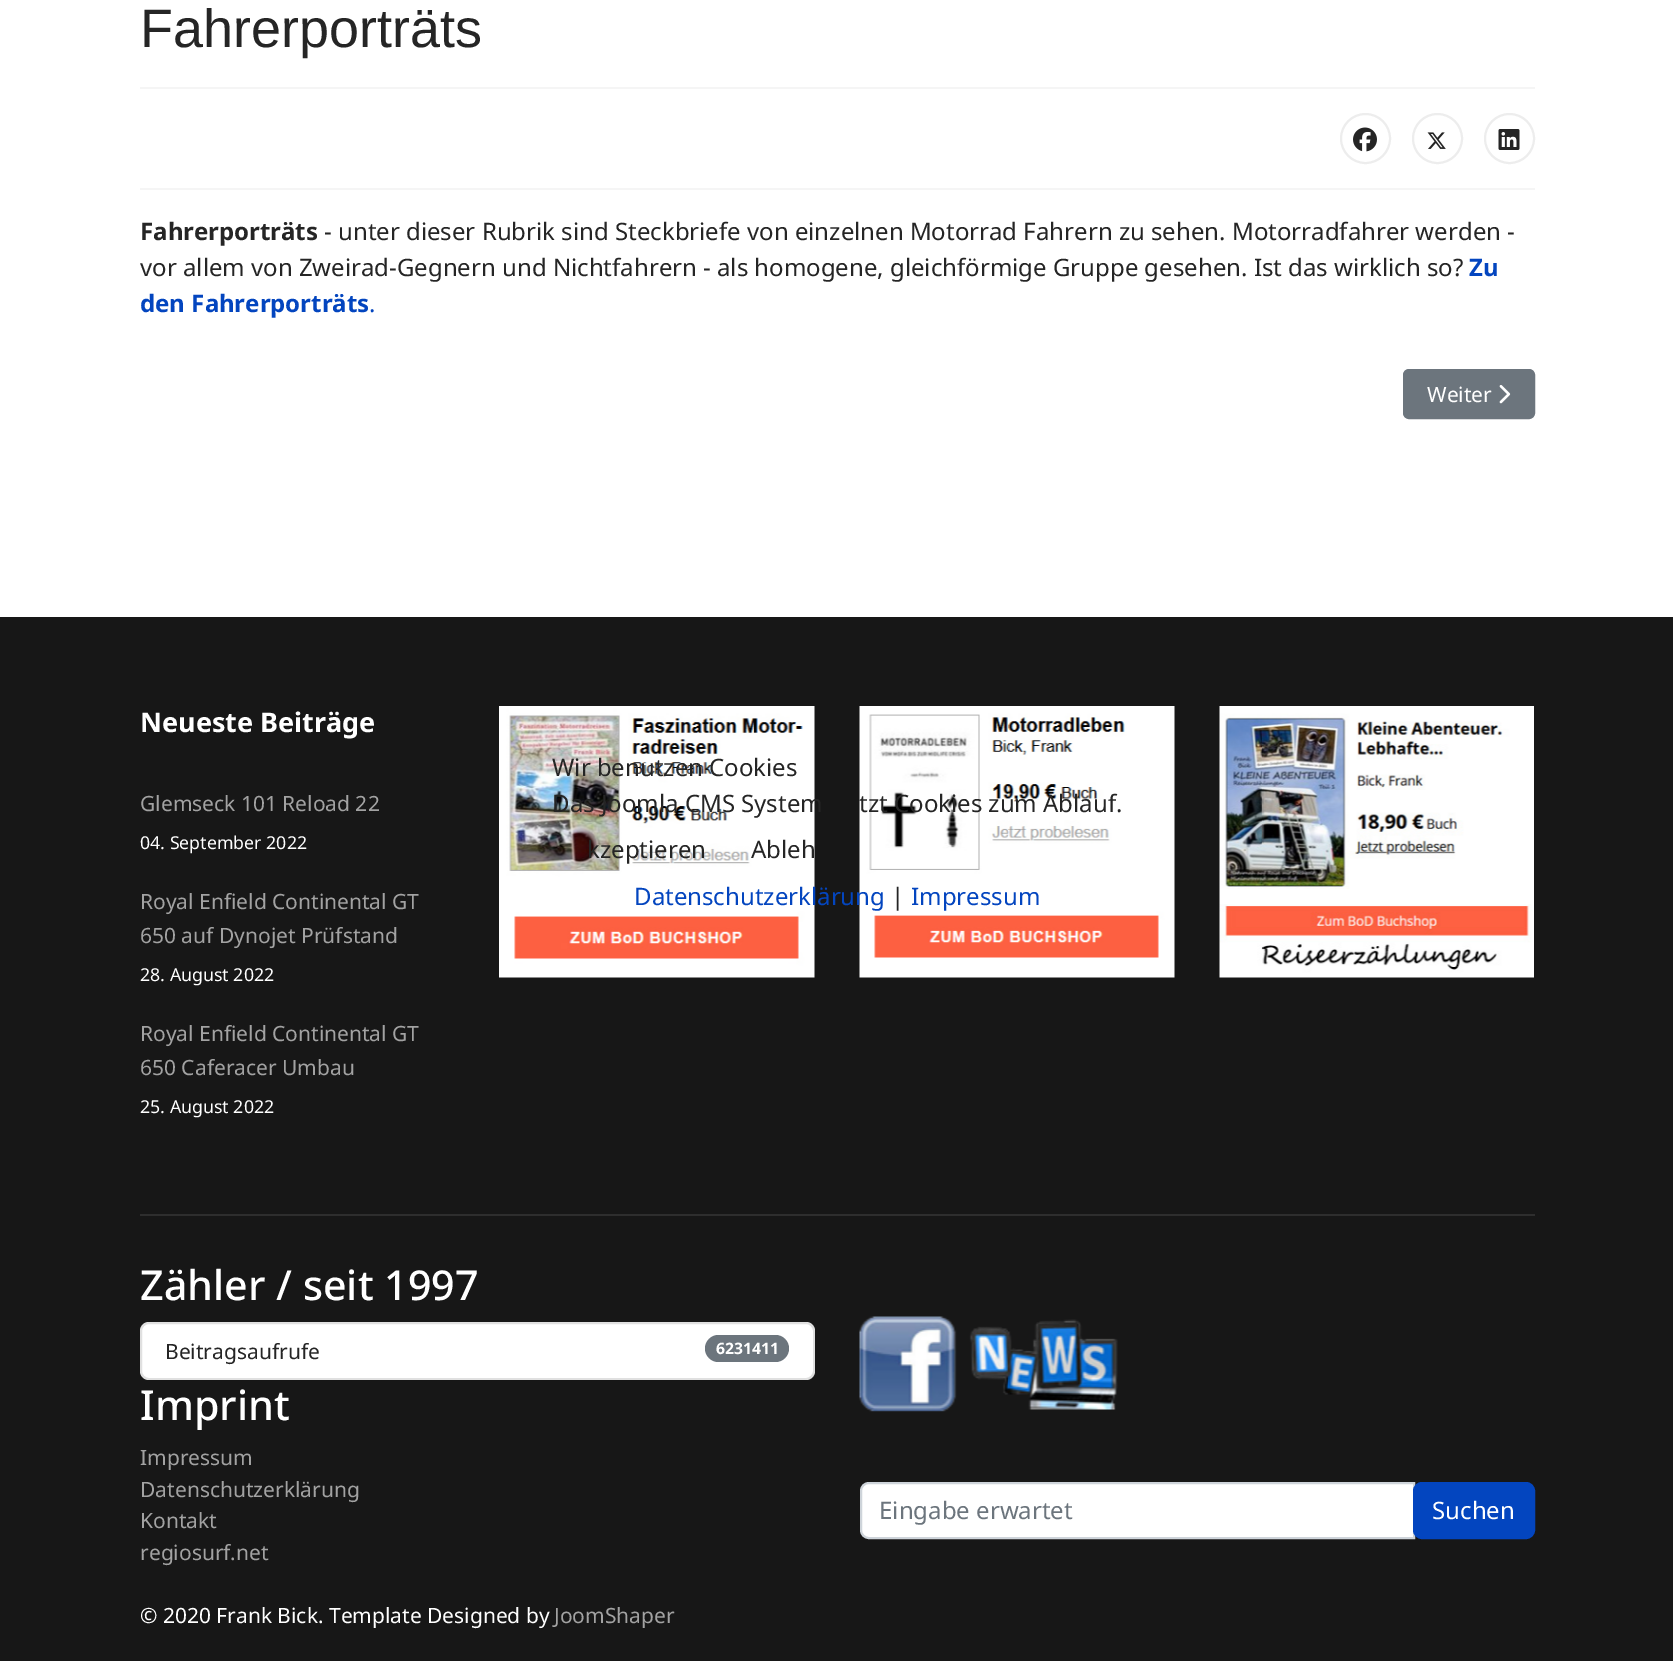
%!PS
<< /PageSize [1673 1661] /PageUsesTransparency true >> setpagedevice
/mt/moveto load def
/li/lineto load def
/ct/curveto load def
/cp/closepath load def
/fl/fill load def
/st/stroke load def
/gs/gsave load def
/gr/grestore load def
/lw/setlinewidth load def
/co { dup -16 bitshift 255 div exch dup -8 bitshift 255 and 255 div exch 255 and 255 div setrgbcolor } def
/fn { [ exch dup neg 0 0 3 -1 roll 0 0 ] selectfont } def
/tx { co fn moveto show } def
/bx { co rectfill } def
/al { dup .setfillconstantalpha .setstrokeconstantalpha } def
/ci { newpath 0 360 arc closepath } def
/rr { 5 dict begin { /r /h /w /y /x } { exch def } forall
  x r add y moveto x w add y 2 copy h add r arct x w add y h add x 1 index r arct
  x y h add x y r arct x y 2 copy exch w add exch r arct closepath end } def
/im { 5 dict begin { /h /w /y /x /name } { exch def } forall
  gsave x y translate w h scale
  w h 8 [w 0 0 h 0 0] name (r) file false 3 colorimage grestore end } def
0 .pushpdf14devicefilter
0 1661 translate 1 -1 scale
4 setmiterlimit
0 0 1673 1661 16#FFFFFF bx
140 87 1395 2 16#F5F5F5 bx
140 188 1395 2 16#F5F5F5 bx
16#EDEDED co
2 lw
1365.5 138.5 24.5 ci st
(media/1.raw) 1353 127 24 25 im
1437.5 138.5 24.5 ci st
(media/2.raw) 1427 132 19 17 im
1509.5 138.5 24.5 ci st
(media/3.raw) 1498 129 22 21 im
16#6C757D co
1404 370 130 48 5 rr gs fl gr
st
(media/4.raw) 1499 385 12 19 im
0 617 1673 1044 16#171717 bx
(media/5.raw) 499 706 316 272 im
(media/6.raw) 859 706 316 272 im
(media/7.raw) 1219 706 315 272 im
140 1214 1395 2 16#2E2E2E bx
16#FFFFFF co
140 1322 675 58 9 rr fl
0.12 al
16#000000 co
141 1323 673 56 8 rr st
1 al
16#6C757D co
705 1335 84 27 13.5 rr fl
(media/8.raw) 859 1316 259 96 im
16#FFFFFF co
869 1483 mt 1414 1483 li 1414 1538 li 869 1538 li 864.5 1538 861 1534.5 861 1530 ct 861 1491 li 861 1486.5 864.5 1483 869 1483 ct cp gs fl gr
16#CED4DA co
st
16#0345BF co
1414 1483 120 55 8 rr gs fl gr
st
(Fahrerporträts) 140 47 /LiberationSans-Regular 54 16#252525 tx
(Fahrerporträts) 140 240 /NotoSans-Bold 24 16#252525 tx
(- unter dieser Rubrik sind Steckbriefe von einzelnen Motorrad Fahrern zu sehen. Motorradfahrer werden -) 324 240 /NotoSans-Regular 24 16#252525 tx
(vor allem von Zweirad-Gegnern und Nichtfahrern - als homogene, gleichförmige Gruppe gesehen. Ist das wirklich so?) 140 276 /NotoSans-Regular 24 16#252525 tx
(Zu) 1469 276 /NotoSans-Bold 24 16#0345BF tx
(den Fahrerporträts) 140 312 /NotoSans-Bold 24 16#0345BF tx
(.) 369 312 /NotoSans-Regular 24 16#0345BF tx
(Weiter) 1427 402 /NotoSans-Regular 21 16#FFFFFF tx
(Neueste Beiträge) 140 732 /NotoSans-Bold 27 16#FFFFFF tx
(Glemseck 101 Reload 22) 140 811 /NotoSans-Regular 21 16#A2A2A2 tx
(04. September 2022) 140 849 /NotoSans-Regular 17.75 16#FFFFFF tx
(Royal Enfield Continental GT) 140 909 /NotoSans-Regular 21 16#A2A2A2 tx
(650 auf Dynojet Prüfstand) 140 943 /NotoSans-Regular 21 16#A2A2A2 tx
(28. August 2022) 140 981 /NotoSans-Regular 17.75 16#FFFFFF tx
(Royal Enfield Continental GT) 140 1041 /NotoSans-Regular 21 16#A2A2A2 tx
(650 Caferacer Umbau) 140 1075 /NotoSans-Regular 21 16#A2A2A2 tx
(25. August 2022) 140 1113 /NotoSans-Regular 17.75 16#FFFFFF tx
(Zähler / seit 1997) 140 1300 /NotoSans-Medium 41.25 16#FFFFFF tx
(Beitragsaufrufe) 165 1359 /NotoSans-Regular 21 16#252525 tx
(6231411) 716 1354 /NotoSans-Bold 15.75 16#FFFFFF tx
(Imprint) 140 1420 /NotoSans-Medium 41.25 16#FFFFFF tx
(Impressum) 140 1465 /NotoSans-Regular 21 16#A2A2A2 tx
(Datenschutzerklärung) 140 1497 /NotoSans-Regular 21 16#A2A2A2 tx
(Kontakt) 140 1528 /NotoSans-Regular 21 16#A2A2A2 tx
(regiosurf.net) 140 1560 /NotoSans-Regular 21 16#A2A2A2 tx
(© 2020 Frank Bick. Template Designed by) 140 1623 /NotoSans-Regular 21 16#FFFFFF tx
(JoomShaper) 554 1623 /NotoSans-Regular 21 16#A2A2A2 tx
(Eingabe erwartet) 879 1519 /NotoSans-Regular 24 16#6C757D tx
(Suchen) 1432 1519 /NotoSans-Regular 24 16#FFFFFF tx
(Wir benutzen Cookies) 552 776 /NotoSans-Regular 24 16#252525 tx
(Das Joomla CMS System) 552 812 /NotoSans-Regular 24 16#252525 tx
(tzt Cookies zum Ablauf.) 859 812 /NotoSans-Regular 24 16#252525 tx
(kzeptieren) 587 858 /NotoSans-Regular 24 16#252525 tx
(Ableh) 751 858 /NotoSans-Regular 24 16#252525 tx
(Datenschutzerklärung) 634 905 /NotoSans-Regular 24 16#0345BF tx
(|) 891 905 /NotoSans-Regular 24 16#252525 tx
(Impressum) 911 905 /NotoSans-Regular 24 16#0345BF tx
.poppdf14devicefilter showpage
